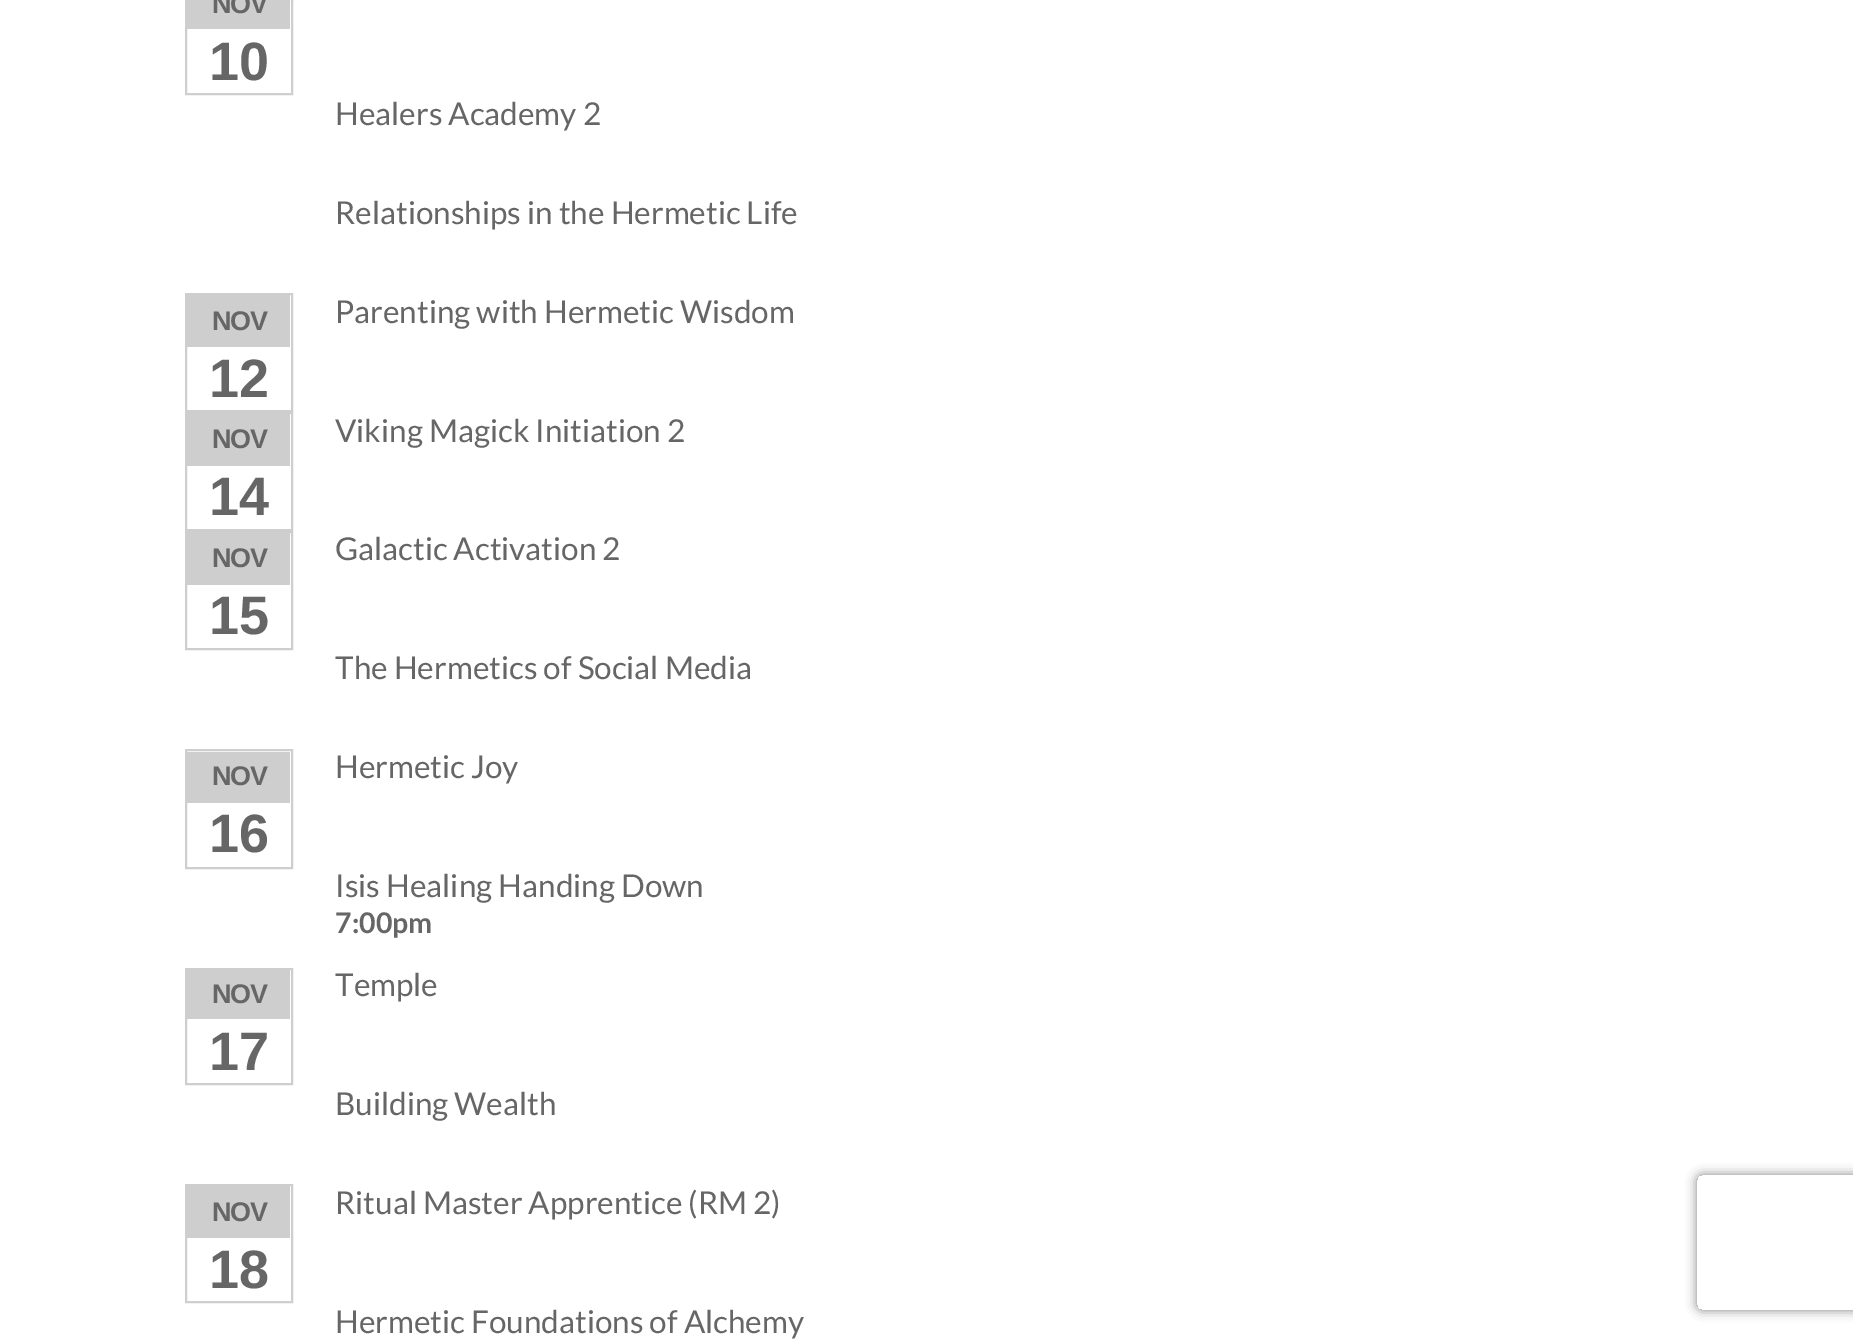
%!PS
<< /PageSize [1853 1339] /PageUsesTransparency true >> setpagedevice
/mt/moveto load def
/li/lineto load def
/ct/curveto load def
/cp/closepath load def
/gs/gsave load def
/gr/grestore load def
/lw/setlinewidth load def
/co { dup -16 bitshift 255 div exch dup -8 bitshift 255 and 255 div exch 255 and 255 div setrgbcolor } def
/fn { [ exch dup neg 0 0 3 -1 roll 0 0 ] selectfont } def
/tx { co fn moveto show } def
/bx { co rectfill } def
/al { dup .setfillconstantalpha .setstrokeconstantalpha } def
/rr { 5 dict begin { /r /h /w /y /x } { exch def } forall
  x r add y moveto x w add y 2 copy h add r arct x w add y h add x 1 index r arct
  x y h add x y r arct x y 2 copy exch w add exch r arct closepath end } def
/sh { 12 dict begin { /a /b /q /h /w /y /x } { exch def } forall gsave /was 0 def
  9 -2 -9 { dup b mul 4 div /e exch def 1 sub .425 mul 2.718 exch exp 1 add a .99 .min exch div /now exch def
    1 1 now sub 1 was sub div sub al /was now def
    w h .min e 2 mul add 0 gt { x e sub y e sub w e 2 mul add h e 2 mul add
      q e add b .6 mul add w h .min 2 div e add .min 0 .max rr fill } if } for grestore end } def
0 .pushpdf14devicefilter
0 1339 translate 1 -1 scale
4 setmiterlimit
0 0 1853 1339 16#FFFFFF bx
16#CECECE co
2 lw
186 -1 106 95 rectstroke
187 0 103 29 16#CECECE bx
186 294 106 117 rectstroke
187 295 103 52 16#CECECE bx
186 413 106 117 rectstroke
187 414 103 52 16#CECECE bx
186 532 106 117 rectstroke
187 533 103 52 16#CECECE bx
186 750 106 118 rectstroke
187 752 103 51 16#CECECE bx
186 969 106 115 rectstroke
187 970 103 49 16#CECECE bx
186 1185 106 117 rectstroke
187 1186 103 52 16#CECECE bx
gs
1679 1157 mt 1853 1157 li 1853 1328 li 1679 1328 li cp 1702 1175 mt 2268 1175 li 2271 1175 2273 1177 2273 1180 ct 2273 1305 li 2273 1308 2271 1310 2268 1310 ct 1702 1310 li 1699 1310 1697 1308 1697 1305 ct 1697 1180 li 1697 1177 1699 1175 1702 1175 ct cp eoclip newpath
16#808080 co
1697 1175 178 135 5 5.5 1 sh
gr
/LiberationSans-Bold 27 fn
16#666666 co
212 13 mt -1 0 (NOV) ashow
(10) 209 80 /LiberationSans-Bold 54 16#666666 tx
(Healers Academy 2) 335 125 /Lato-Regular 31.5 16#666666 tx
(Relationships in the Hermetic Life) 335 224 /Lato-Regular 31.5 16#666666 tx
/LiberationSans-Bold 27 fn
212 330 mt -1 0 (NOV) ashow
(12) 209 397 /LiberationSans-Bold 54 16#666666 tx
(Parenting with Hermetic Wisdom) 335 323 /Lato-Regular 31.5 16#666666 tx
/LiberationSans-Bold 27 fn
212 448 mt -1 0 (NOV) ashow
(14) 209 515 /LiberationSans-Bold 54 16#666666 tx
(Viking Magick Initiation 2) 335 442 /Lato-Regular 31.5 16#666666 tx
/LiberationSans-Bold 27 fn
212 567 mt -1 0 (NOV) ashow
(15) 209 634 /LiberationSans-Bold 54 16#666666 tx
(Galactic Activation 2) 335 560 /Lato-Regular 31.5 16#666666 tx
(The Hermetics of Social Media) 335 679 /Lato-Regular 31.5 16#666666 tx
/LiberationSans-Bold 27 fn
212 785 mt -1 0 (NOV) ashow
(16) 209 852 /LiberationSans-Bold 54 16#666666 tx
(Hermetic Joy) 335 778 /Lato-Regular 31.5 16#666666 tx
(Isis Healing Handing Down) 335 897 /Lato-Regular 31.5 16#666666 tx
(7:00pm) 335 933 /Lato-Bold 28.5 16#666666 tx
/LiberationSans-Bold 27 fn
212 1003 mt -1 0 (NOV) ashow
(17) 209 1070 /LiberationSans-Bold 54 16#666666 tx
(Temple) 335 996 /Lato-Regular 31.5 16#666666 tx
(Building Wealth) 335 1115 /Lato-Regular 31.5 16#666666 tx
/LiberationSans-Bold 27 fn
212 1221 mt -1 0 (NOV) ashow
(18) 209 1288 /LiberationSans-Bold 54 16#666666 tx
(Ritual Master Apprentice \(RM 2\)) 335 1214 /Lato-Regular 31.5 16#666666 tx
(Hermetic Foundations of Alchemy) 335 1333 /Lato-Regular 31.5 16#666666 tx
.poppdf14devicefilter showpage
